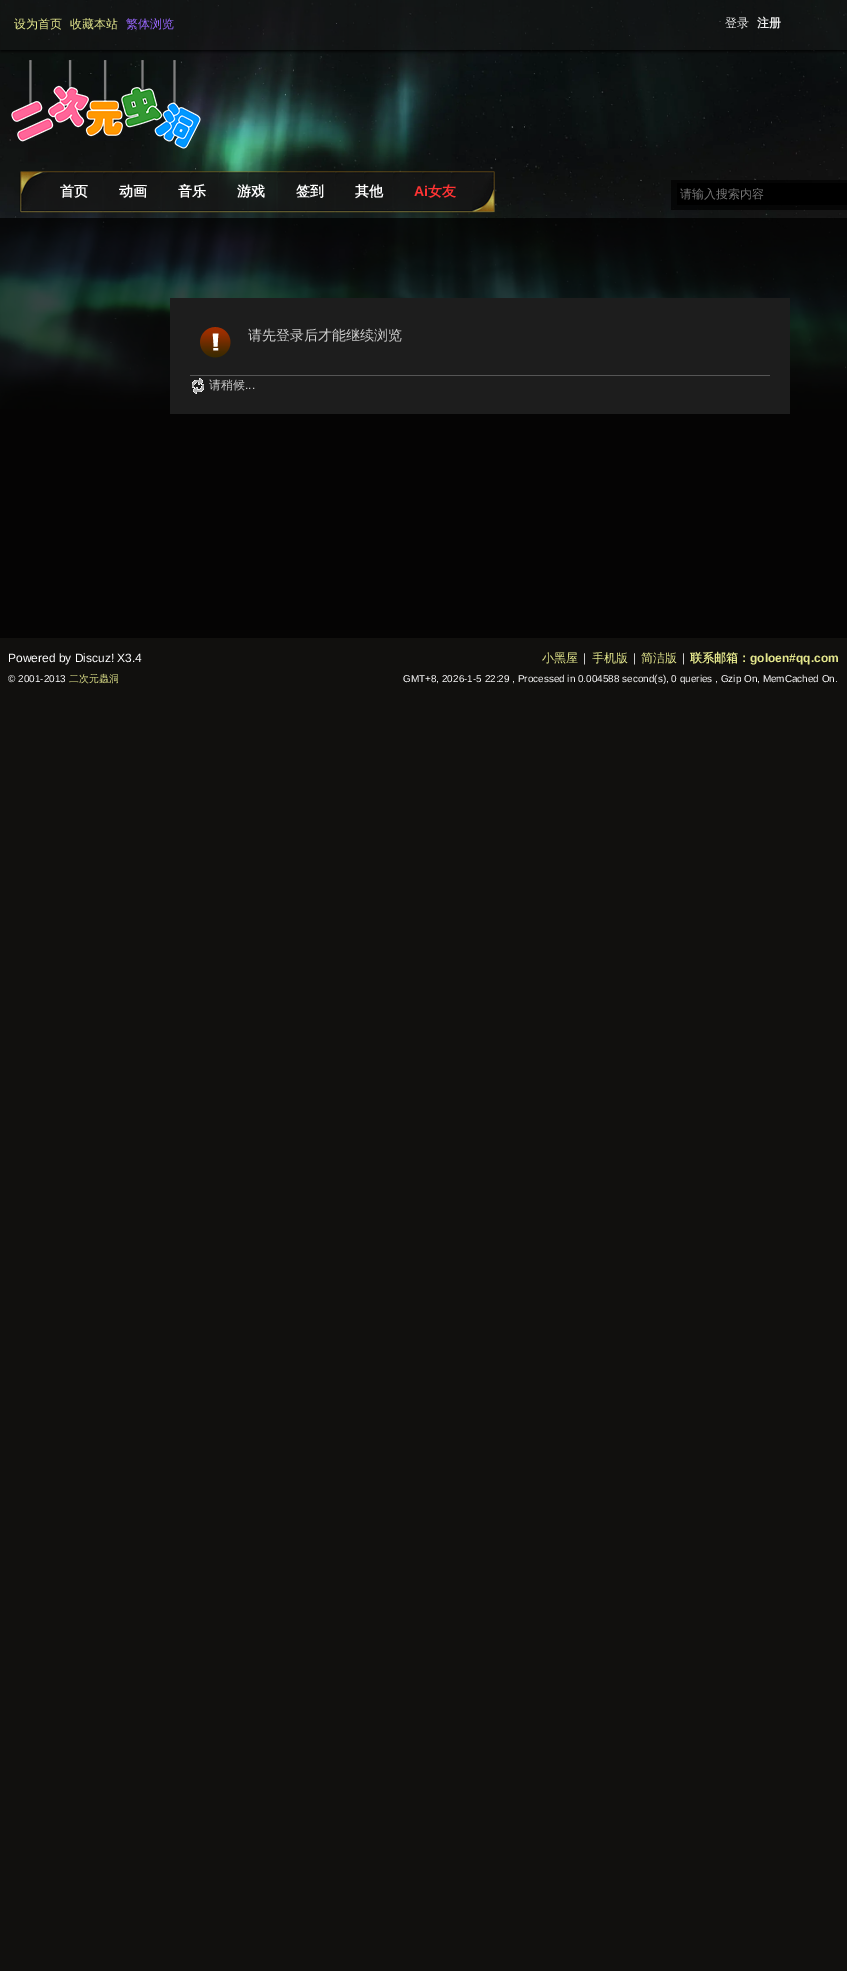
%!PS
<< /PageSize [847 1971] /PageUsesTransparency true >> setpagedevice
/gs/gsave load def
/gr/grestore load def
/co { dup -16 bitshift 255 div exch dup -8 bitshift 255 and 255 div exch 255 and 255 div setrgbcolor } def
/fn { [ exch dup neg 0 0 3 -1 roll 0 0 ] selectfont } def
/tx { co fn moveto show } def
/bx { co rectfill } def
/al { dup .setfillconstantalpha .setstrokeconstantalpha } def
/rr { 5 dict begin { /r /h /w /y /x } { exch def } forall
  x r add y moveto x w add y 2 copy h add r arct x w add y h add x 1 index r arct
  x y h add x y r arct x y 2 copy exch w add exch r arct closepath end } def
/sh { 12 dict begin { /a /b /q /h /w /y /x } { exch def } forall gsave /was 0 def
  9 -2 -9 { dup b mul 4 div /e exch def 1 sub .425 mul 2.718 exch exp 1 add a .99 .min exch div /now exch def
    1 1 now sub 1 was sub div sub al /was now def
    w h .min e 2 mul add 0 gt { x e sub y e sub w e 2 mul add h e 2 mul add
      q e add b .6 mul add w h .min 2 div e add .min 0 .max rr fill } if } for grestore end } def
/im { 5 dict begin { /h /w /y /x /name } { exch def } forall
  gsave x y translate w h scale
  w h 8 [w 0 0 h 0 0] name (r) file false 3 colorimage grestore end } def
0 .pushpdf14devicefilter
0 1971 translate 1 -1 scale
4 setmiterlimit
0 0 847 1971 16#11100E bx
(media/1.raw) 0 0 847 409 im
gs
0 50 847 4 rectclip
16#000000 co
1 1 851 50 0 1.5 1 sh
gr
(media/2.raw) 0 0 847 50 im
(media/3.raw) 11 60 190 89 im
(media/4.raw) 19 171 26 42 im
(media/5.raw) 45 171 427 42 im
(media/6.raw) 472 171 23 42 im
0.7 al
671 180 6 30 16#000000 bx
677 180 170 30 16#000000 bx
1 al
677 183 170 22 16#000000 bx
0.73 al
0 218 847 420 16#000000 bx
1 al
170 298 620 116 16#1D1D1D bx
(media/7.raw) 200 327 31 31 im
190 375 580 1 16#555555 bx
(media/8.raw) 192 378 12 16 im
(设为首页) 14 28 /WenQuanYiZenHei-Medium 12 16#E5E88D tx
(收藏本站) 70 28 /WenQuanYiZenHei-Medium 12 16#E5E88D tx
(繁体浏览) 126 28 /WenQuanYiZenHei-Medium 12 16#9966FF tx
(登录) 725 27 /WenQuanYiZenHei-Medium 12 16#EDEDED tx
(注册) 757 27 /WenQuanYiZenHei-Bold 12 16#EDEDED tx
(首页) 60 196 /WenQuanYiZenHei-Bold 14 16#FFFFFF tx
(动画) 119 196 /WenQuanYiZenHei-Bold 14 16#FFFFFF tx
(音乐) 178 196 /WenQuanYiZenHei-Bold 14 16#FFFFFF tx
(游戏) 237 196 /WenQuanYiZenHei-Bold 14 16#FFFFFF tx
(签到) 296 196 /WenQuanYiZenHei-Bold 14 16#FFFFFF tx
(其他) 355 196 /WenQuanYiZenHei-Bold 14 16#FFFFFF tx
(Ai) 414 196 /LiberationSans-Bold 14 16#FF3333 tx
(女友) 428 196 /WenQuanYiZenHei-Bold 14 16#FF3333 tx
(请输入搜索内容) 680 198 /WenQuanYiZenHei-Medium 12 16#757575 tx
(请先登录后才能继续浏览) 248 340 /WenQuanYiZenHei-Medium 14 16#CCCCCC tx
(请稍候) 209 389 /WenQuanYiZenHei-Medium 12 16#CCCCCC tx
(...) 245 389 /LiberationSans-Regular 12 16#CCCCCC tx
(Powered by Discuz! X3.4) 8 662 /LiberationSans-Regular 12 16#FFFFFF tx
(© 2001-2013) 8 682 /LiberationSans-Regular 9.95 16#FFFFFF tx
(二次元蟲洞) 69 682 /WenQuanYiZenHei-Medium 9.95 16#E5E88D tx
(小黑屋) 542 662 /WenQuanYiZenHei-Medium 12 16#E5E88D tx
(|) 583 662 /LiberationSans-Regular 12 16#CCCCCC tx
(手机版) 592 662 /WenQuanYiZenHei-Medium 12 16#E5E88D tx
(|) 633 662 /LiberationSans-Regular 12 16#CCCCCC tx
(简洁版) 641 662 /WenQuanYiZenHei-Medium 12 16#E5E88D tx
(|) 682 662 /LiberationSans-Regular 12 16#CCCCCC tx
(联系邮箱：) 690 662 /WenQuanYiZenHei-Bold 12 16#E5E88D tx
(goloen#qq.com) 750 662 /LiberationSans-Bold 12 16#E5E88D tx
(GMT+8, 2026-1-5 22:29 , Processed in 0.004588 second\(s\), 0 queries , Gzip On, MemCached On.) 403 682 /LiberationSans-Regular 9.95 16#FFFFFF tx
.poppdf14devicefilter showpage
